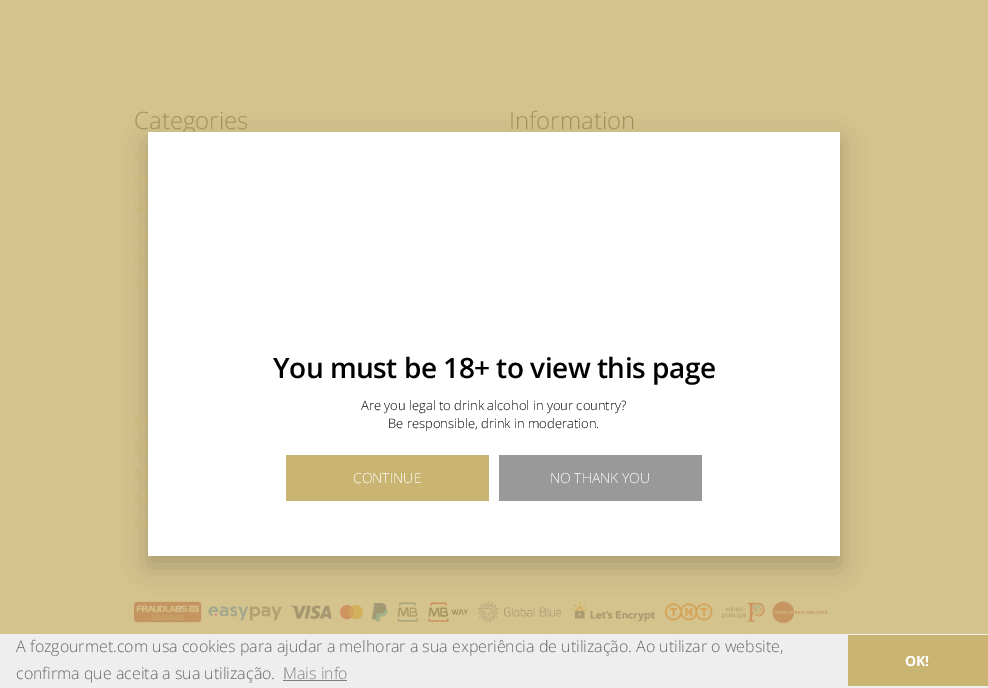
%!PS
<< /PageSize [988 688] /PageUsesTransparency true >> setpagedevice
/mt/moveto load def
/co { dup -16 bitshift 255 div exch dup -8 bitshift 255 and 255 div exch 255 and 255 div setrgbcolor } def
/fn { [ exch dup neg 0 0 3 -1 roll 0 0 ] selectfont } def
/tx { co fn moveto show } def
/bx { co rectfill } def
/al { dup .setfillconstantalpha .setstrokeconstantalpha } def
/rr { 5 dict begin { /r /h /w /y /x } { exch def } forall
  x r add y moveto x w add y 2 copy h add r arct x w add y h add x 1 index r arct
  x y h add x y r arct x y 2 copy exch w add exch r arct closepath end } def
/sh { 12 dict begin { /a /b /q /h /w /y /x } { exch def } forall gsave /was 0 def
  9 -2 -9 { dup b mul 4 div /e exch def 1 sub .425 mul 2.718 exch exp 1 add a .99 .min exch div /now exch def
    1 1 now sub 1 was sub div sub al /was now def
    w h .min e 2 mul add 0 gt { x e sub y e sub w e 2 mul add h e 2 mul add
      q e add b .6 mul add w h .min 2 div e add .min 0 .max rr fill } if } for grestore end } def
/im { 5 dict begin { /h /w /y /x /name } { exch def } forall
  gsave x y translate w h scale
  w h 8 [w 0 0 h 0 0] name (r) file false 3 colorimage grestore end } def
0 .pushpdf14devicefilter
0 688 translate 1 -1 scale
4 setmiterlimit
0 0 988 688 16#D5C38D bx
134 17 720 1 16#D1C08A bx
(media/1.raw) 134 601 68 22 im
(media/2.raw) 208 606 74 15 im
(media/3.raw) 290 605 42 15 im
(media/4.raw) 340 604 23 16 im
(media/5.raw) 371 602 17 20 im
(media/6.raw) 397 602 22 20 im
(media/7.raw) 428 602 40 20 im
(media/8.raw) 477 601 85 22 im
(media/9.raw) 571 602 84 20 im
(media/10.raw) 664 603 49 18 im
(media/11.raw) 721 602 44 20 im
(media/12.raw) 771 601 57 23 im
16#000000 co
148 142 692 424 0 12.5 .2 sh
0 634 988 54 16#EEEEEE bx
283 680 64 1 16#818181 bx
848 635 140 51 16#CAB471 bx
(Categories) 134 129 /OpenSans-Light 24 16#A2905A tx
(Pr) 134 163 /OpenSans-Light 16 16#CAB471 tx
(Ch) 134 188 /OpenSans-Light 16 16#CAB471 tx
(W) 134 213 /OpenSans-Light 16 16#CAB471 tx
(Sp) 134 238 /OpenSans-Light 16 16#CAB471 tx
(G) 134 263 /OpenSans-Light 16 16#CAB471 tx
(Su) 134 288 /OpenSans-Light 16 16#CAB471 tx
(Information) 509 129 /OpenSans-Light 24 16#A2905A tx
(M) 134 429 /OpenSans-Light 16 16#CAB471 tx
(M) 134 454 /OpenSans-Light 16 16#CAB471 tx
(M) 134 479 /OpenSans-Light 16 16#CAB471 tx
(M) 134 504 /OpenSans-Light 16 16#CAB471 tx
(M) 134 529 /OpenSans-Light 16 16#CAB471 tx
148 132 692 424 16#FFFFFF bx
/OpenSans-SemiBold 28 fn
16#000000 co
273 378 mt -.5 0 (You must be 18+ to view this page) ashow
(Are you legal to drink alcohol in your country?) 361 410 /OpenSans-Light 13 16#000000 tx
(Be responsible, drink in moderation.) 388 428 /OpenSans-Light 13 16#000000 tx
286 455 203 46 16#CAB471 bx
(CONTINUE) 353 483 /OpenSans-Light 14 16#FFFFFF tx
499 455 203 46 16#999999 bx
(NO THANK YOU) 550 483 /OpenSans-Light 14 16#FFFFFF tx
(A fozgourmet.com usa cookies para ajudar a melhorar a sua experiência de utilização. Ao utilizar o website,) 16 652 /OpenSans-Light 16 16#666666 tx
(confirma que aceita a sua utilização.) 16 679 /OpenSans-Light 16 16#666666 tx
(Mais info) 283 679 /OpenSans-Light 16 16#818181 tx
(OK!) 905 666 /OpenSans-Bold 14 16#FFFFFF tx
.poppdf14devicefilter showpage
